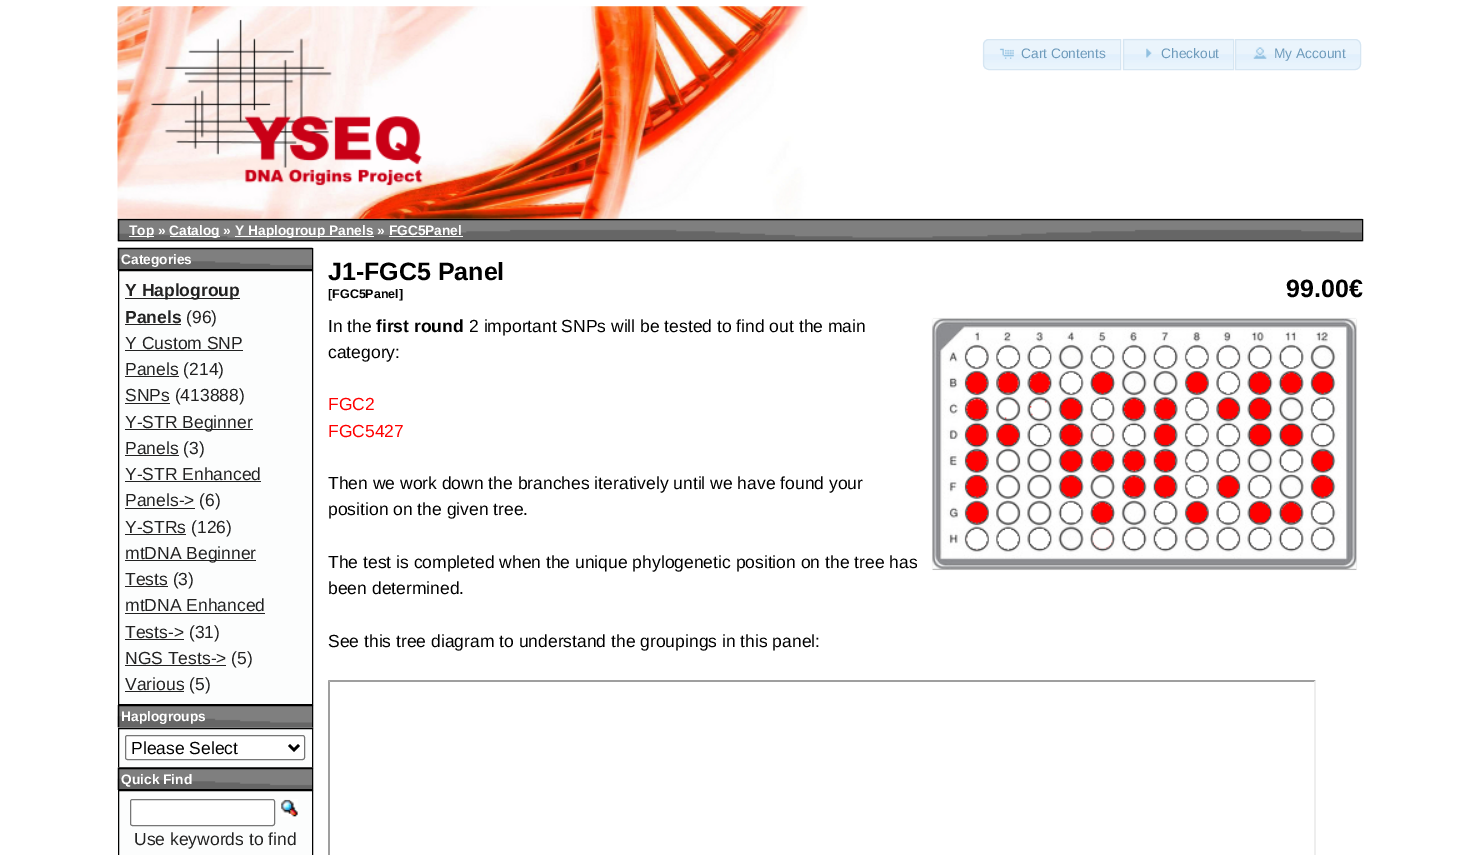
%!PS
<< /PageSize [1480 855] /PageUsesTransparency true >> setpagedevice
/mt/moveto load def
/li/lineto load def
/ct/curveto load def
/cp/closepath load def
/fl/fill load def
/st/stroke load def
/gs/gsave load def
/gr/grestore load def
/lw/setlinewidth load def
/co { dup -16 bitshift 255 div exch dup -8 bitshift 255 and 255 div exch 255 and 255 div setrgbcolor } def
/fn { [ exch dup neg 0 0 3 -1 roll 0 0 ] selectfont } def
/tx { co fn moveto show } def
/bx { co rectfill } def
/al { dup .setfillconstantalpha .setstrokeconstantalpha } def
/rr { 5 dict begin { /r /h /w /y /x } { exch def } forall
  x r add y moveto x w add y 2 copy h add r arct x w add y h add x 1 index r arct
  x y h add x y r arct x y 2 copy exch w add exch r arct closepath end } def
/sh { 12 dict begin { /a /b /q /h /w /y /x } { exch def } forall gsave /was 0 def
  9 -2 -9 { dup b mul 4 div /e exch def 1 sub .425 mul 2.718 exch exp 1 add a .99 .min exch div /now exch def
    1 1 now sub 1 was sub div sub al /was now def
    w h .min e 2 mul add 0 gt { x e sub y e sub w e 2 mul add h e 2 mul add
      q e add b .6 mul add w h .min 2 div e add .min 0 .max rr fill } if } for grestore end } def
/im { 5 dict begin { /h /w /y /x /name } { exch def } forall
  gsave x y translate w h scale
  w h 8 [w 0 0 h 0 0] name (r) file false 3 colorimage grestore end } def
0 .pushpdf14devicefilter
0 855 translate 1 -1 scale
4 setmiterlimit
0 0 1480 855 16#FFFFFF bx
(media/1.raw) 117 6 691 219 im
(media/2.raw) 982 39 138 30 im
16#D6E6F2 co
989 39.5 mt 1120.5 39.5 li 1120.5 69.5 li 989 69.5 li 986 69.5 983.5 67 983.5 64 ct 983.5 45 li 983.5 42 986 39.5 989 39.5 ct cp st
(media/3.raw) 999 48 15 11 im
(media/4.raw) 1122 38 112 32 im
1123.5 39.5 110 30 rectstroke
(media/5.raw) 1146 48 6 10 im
16#E9F4FD co
1235 39 mt 1355 39 li 1358.5 39 1361 41.5 1361 45 ct 1361 64 li 1361 67.5 1358.5 70 1355 70 ct 1235 70 li cp fl
(media/6.raw) 1236 39 125 28 im
16#D6E6F2 co
1235.5 39.5 mt 1355 39.5 li 1358 39.5 1360.5 42 1360.5 45 ct 1360.5 64 li 1360.5 67 1358 69.5 1355 69.5 ct 1235.5 69.5 li cp st
(media/7.raw) 1253 47 14 12 im
(media/8.raw) 117 218 1246 24 im
16#000000 co
118.5 219.5 1244 21 rectstroke
129 236 25 1 16#FFFFFF bx
170 236 50 1 16#FFFFFF bx
235 236 139 1 16#FFFFFF bx
389 236 74 1 16#FFFFFF bx
(media/9.raw) 117 247 196 23 im
16#000000 co
118.5 248.5 194 21 rectstroke
16#FCFDFD co
118.5 270.5 mt 312.5 270.5 li 312.5 704.5 li 118.5 704.5 li cp gs fl gr
16#000000 co
st
125 298 115 1 16#222222 bx
125 324 56 1 16#222222 bx
125 350 118 1 16#222222 bx
125 376 54 1 16#222222 bx
125 403 45 1 16#222222 bx
125 429 128 1 16#222222 bx
125 455 54 1 16#222222 bx
125 481 136 1 16#222222 bx
125 508 70 1 16#222222 bx
125 534 61 1 16#222222 bx
125 560 131 1 16#222222 bx
125 586 43 1 16#222222 bx
125 613 140 1 16#222222 bx
125 639 59 1 16#222222 bx
125 665 101 1 16#222222 bx
125 691 59 1 16#222222 bx
(media/10.raw) 117 705 195 23 im
16#000000 co
118.5 705.5 194 22 rectstroke
16#FCFDFD co
118.5 728.5 mt 312.5 728.5 li 312.5 767.5 li 118.5 767.5 li cp gs fl gr
16#000000 co
st
(media/11.raw) 117 727 196 1 im
16#FFFFFF co
125.5 735.5 179 24 2 rr gs fl gr
16#767676 co
st
16#000000 co
2.5 lw
289 745 mt 294 750 li 299 745 li st
(media/12.raw) 117 767 196 23 im
1 lw
118.5 768.5 194 21 rectstroke
16#FCFDFD co
118.5 790.5 mt 312.5 790.5 li 312.5 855.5 li 118.5 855.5 li cp gs fl gr
16#000000 co
st
16#FFFFFF co
130.5 799.5 144 26 2 rr gs fl gr
16#767676 co
st
(media/13.raw) 281 799 17 18 im
16#000000 co
933 319 423 250 0 .5 1 sh
(media/14.raw) 932 318 425 251 im
16#9F9F9F co
328 680 mt 1316 680 li 1314 682 li 330 682 li cp fl
328 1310 mt 328 680 li 330 682 li 330 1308 li cp fl
16#EEEEEE co
1316 680 mt 1316 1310 li 1314 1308 li 1314 682 li cp fl
(Cart Contents) 1021 58 /LiberationSans-Regular 13.75 16#6D9ABB tx
(Checkout) 1161 58 /LiberationSans-Regular 13.75 16#6D9ABB tx
(My Account) 1274 58 /LiberationSans-Regular 13.75 16#6D9ABB tx
(Top ») 129 235 /LiberationSans-Bold 13.75 16#FFFFFF tx
(Catalog ») 169 235 /LiberationSans-Bold 13.75 16#FFFFFF tx
(Y Haplogroup Panels » FGC5Panel) 235 235 /LiberationSans-Bold 13.75 16#FFFFFF tx
(Categories) 121 264 /LiberationSans-Bold 13.75 16#FFFFFF tx
(Y Haplogroup) 125 296 /LiberationSans-Bold 17.5 16#222222 tx
(Panels) 125 323 /LiberationSans-Bold 17.5 16#222222 tx
(\(96\)) 186 323 /LiberationSans-Regular 17.5 16#222222 tx
(Y Custom SNP) 125 349 /LiberationSans-Regular 17.5 16#222222 tx
(Panels \(214\)) 125 375 /LiberationSans-Regular 17.5 16#222222 tx
(SNPs \(413888\)) 125 401 /LiberationSans-Regular 17.5 16#222222 tx
(Y-STR Beginner) 125 428 /LiberationSans-Regular 17.5 16#222222 tx
(Panels \(3\)) 125 454 /LiberationSans-Regular 17.5 16#222222 tx
(Y-STR Enhanced) 125 480 /LiberationSans-Regular 17.5 16#222222 tx
(Panels-> \(6\)) 125 506 /LiberationSans-Regular 17.5 16#222222 tx
(Y-STRs \(126\)) 125 533 /LiberationSans-Regular 17.5 16#222222 tx
(mtDNA Beginner) 125 559 /LiberationSans-Regular 17.5 16#222222 tx
(Tests \(3\)) 125 585 /LiberationSans-Regular 17.5 16#222222 tx
(mtDNA Enhanced) 125 611 /LiberationSans-Regular 17.5 16#222222 tx
(Tests-> \(31\)) 125 638 /LiberationSans-Regular 17.5 16#222222 tx
(NGS Tests-> \(5\)) 125 664 /LiberationSans-Regular 17.5 16#222222 tx
(Various \(5\)) 125 690 /LiberationSans-Regular 17.5 16#222222 tx
(Haplogroups) 121 721 /LiberationSans-Bold 13.75 16#FFFFFF tx
(Please Select) 131 754 /LiberationSans-Regular 17.5 16#000000 tx
(Quick Find) 121 784 /LiberationSans-Bold 13.75 16#FFFFFF tx
(Use keywords to find) 134 845 /LiberationSans-Regular 17.5 16#222222 tx
(J1-FGC5 Panel) 328 280 /LiberationSans-Bold 25 16#000000 tx
([FGC5Panel]) 328 298 /LiberationSans-Bold 12.5 16#000000 tx
(99.00€) 1286 297 /LiberationSans-Bold 25 16#000000 tx
(In the) 328 332 /LiberationSans-Regular 17.5 16#000000 tx
(first round) 376 332 /LiberationSans-Bold 17.5 16#000000 tx
(2 important SNPs will be tested to find out the main) 469 332 /LiberationSans-Regular 17.5 16#000000 tx
(category:) 328 358 /LiberationSans-Regular 17.5 16#000000 tx
(FGC2) 328 410 /LiberationSans-Regular 17.5 16#FF0000 tx
(FGC5427) 328 437 /LiberationSans-Regular 17.5 16#FF0000 tx
(Then we work down the branches iteratively until we have found your) 328 489 /LiberationSans-Regular 17.5 16#000000 tx
(position on the given tree.) 328 515 /LiberationSans-Regular 17.5 16#000000 tx
(The test is completed when the unique phylogenetic position on the tree has) 328 568 /LiberationSans-Regular 17.5 16#000000 tx
(been determined.) 328 594 /LiberationSans-Regular 17.5 16#000000 tx
(See this tree diagram to understand the groupings in this panel:) 328 647 /LiberationSans-Regular 17.5 16#000000 tx
.poppdf14devicefilter showpage
